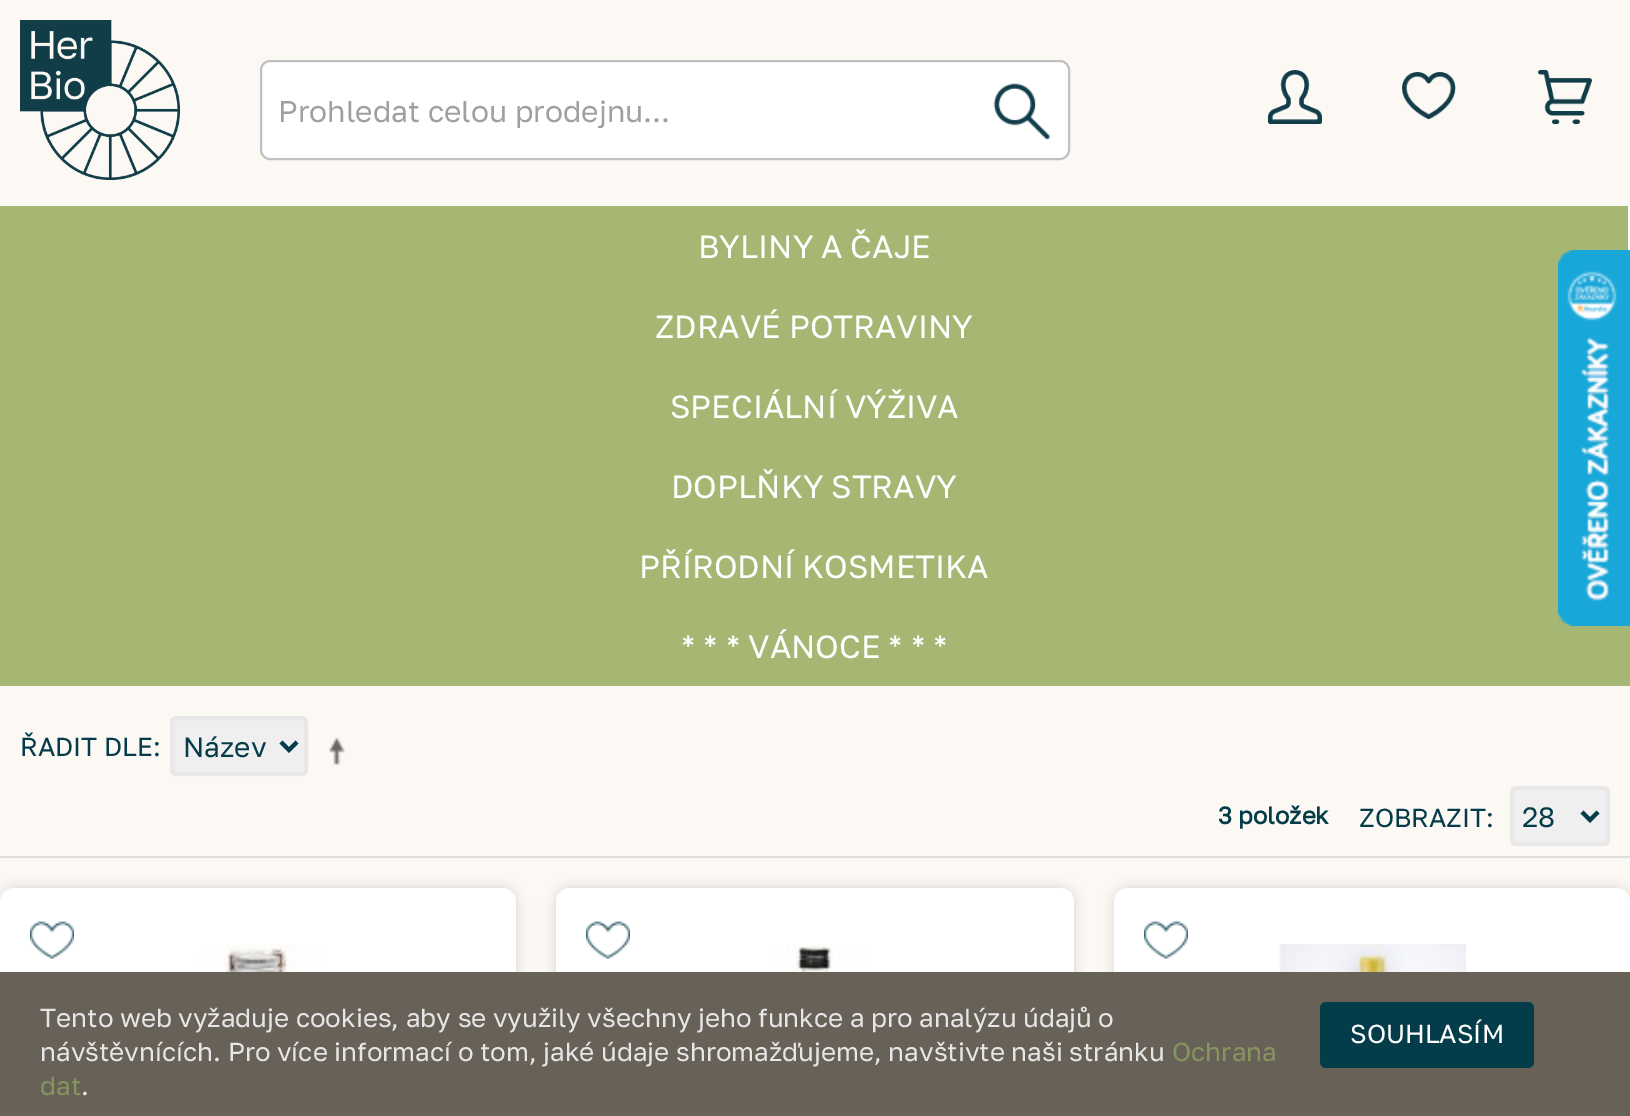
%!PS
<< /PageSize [1630 1116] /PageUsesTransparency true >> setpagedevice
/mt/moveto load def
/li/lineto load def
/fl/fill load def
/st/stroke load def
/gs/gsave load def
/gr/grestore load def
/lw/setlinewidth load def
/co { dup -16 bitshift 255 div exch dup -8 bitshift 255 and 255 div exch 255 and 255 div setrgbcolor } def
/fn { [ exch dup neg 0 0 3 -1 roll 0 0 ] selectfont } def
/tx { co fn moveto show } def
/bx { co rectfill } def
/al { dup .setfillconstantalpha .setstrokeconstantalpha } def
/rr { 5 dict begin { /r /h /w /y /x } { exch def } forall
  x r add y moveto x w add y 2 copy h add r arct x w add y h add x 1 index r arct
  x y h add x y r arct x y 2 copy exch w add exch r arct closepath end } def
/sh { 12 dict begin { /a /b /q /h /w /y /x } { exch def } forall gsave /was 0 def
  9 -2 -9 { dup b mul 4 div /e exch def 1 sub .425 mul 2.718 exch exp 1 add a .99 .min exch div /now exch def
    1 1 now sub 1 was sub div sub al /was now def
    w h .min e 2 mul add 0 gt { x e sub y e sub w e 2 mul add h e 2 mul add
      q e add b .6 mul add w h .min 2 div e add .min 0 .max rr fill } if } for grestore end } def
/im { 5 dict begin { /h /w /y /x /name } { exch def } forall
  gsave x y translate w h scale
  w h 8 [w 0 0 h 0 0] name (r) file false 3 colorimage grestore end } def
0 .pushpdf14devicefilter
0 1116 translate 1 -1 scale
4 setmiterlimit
0 0 1630 1116 16#FCF9F4 bx
(media/1.raw) 20 20 160 160 im
16#FFFFFF co
261 61 808 98 9 rr gs fl gr
16#C0C0C0 co
2 lw
st
(media/2.raw) 993 83 57 57 im
(media/3.raw) 1268 70 54 54 im
(media/4.raw) 1402 72 54 48 im
(media/5.raw) 1538 70 54 54 im
0 206 1630 480 16#A5B772 bx
1628 206 2 44 16#FFFFFF bx
0 856 1630 2 16#DFDFDF bx
16#EFEFEF co
172 718 134 56 4 rr gs fl gr
16#E8E8E8 co
4 lw
st
16#043C49 co
281 742 mt 289 750 li 297 742 li st
(media/6.raw) 329 737 16 29 im
16#EFEFEF co
1512 788 96 56 4 rr gs fl gr
16#E8E8E8 co
st
16#043C49 co
1582 812 mt 1590 820 li 1598 812 li st
16#C0C0C0 co
0 888 516 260 14 6 .7 sh
16#FFFFFF co
0 888 516 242 14 rr fl
(media/7.raw) 30 921 44 38 im
(media/8.raw) 185 944 141 28 im
16#C0C0C0 co
556 888 518 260 14 6 .7 sh
16#FFFFFF co
556 888 518 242 14 rr fl
(media/7.raw) 586 921 44 38 im
(media/9.raw) 771 944 95 28 im
16#C0C0C0 co
1114 888 516 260 14 6 .7 sh
16#FFFFFF co
1114 888 516 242 14 rr fl
(media/7.raw) 1144 921 44 38 im
(media/10.raw) 1279 944 188 28 im
0 972 1630 144 16#676157 bx
16#043C49 co
1320 1002 214 66 6 rr fl
(media/11.raw) 1558 250 72 376 im
gs
278 92 702 36 rectclip
(Prohledat celou prodejnu...) 278 122 /GolosText-Regular 30 16#A0A0A0 tx
gr
(BYLINY A ČAJE) 698 258 /GolosText-Regular 32 16#FFFFFF tx
(ZDRAVÉ POTRAVINY) 655 338 /GolosText-Regular 32 16#FFFFFF tx
(SPECIÁLNÍ VÝŽIVA) 670 418 /GolosText-Regular 32 16#FFFFFF tx
(DOPLŇKY STRAVY) 671 498 /GolosText-Regular 32 16#FFFFFF tx
(PŘÍRODNÍ KOSMETIKA) 639 578 /GolosText-Regular 32 16#FFFFFF tx
(* * * VÁNOCE * * *) 681 658 /GolosText-Regular 32 16#FFFFFF tx
(ŘADIT DLE:) 20 756 /GolosText-Regular 26 16#043C49 tx
(Název) 183 757 /GolosText-Regular 28 16#043C49 tx
(3 položek) 1218 824 /GolosText-Bold 24 16#043C49 tx
(ZOBRAZIT:) 1359 827 /GolosText-Regular 26 16#043C49 tx
(28) 1522 827 /GolosText-Regular 28 16#043C49 tx
(Tento web vyžaduje cookies, aby se využily všechny jeho funkce a pro analýzu údajů o) 40 1027 /GolosText-Regular 26 16#E6E6E6 tx
(návštěvnících. Pro více informací o tom, jaké údaje shromažďujeme, navštivte naši stránku) 40 1061 /GolosText-Regular 26 16#E6E6E6 tx
(Ochrana) 1172 1061 /GolosText-Regular 26 16#86955D tx
(dat) 40 1095 /GolosText-Regular 26 16#86955D tx
(.) 81 1095 /GolosText-Regular 26 16#E6E6E6 tx
(SOUHLASÍM) 1350 1043 /GolosText-Regular 26 16#FFFFFF tx
.poppdf14devicefilter showpage
